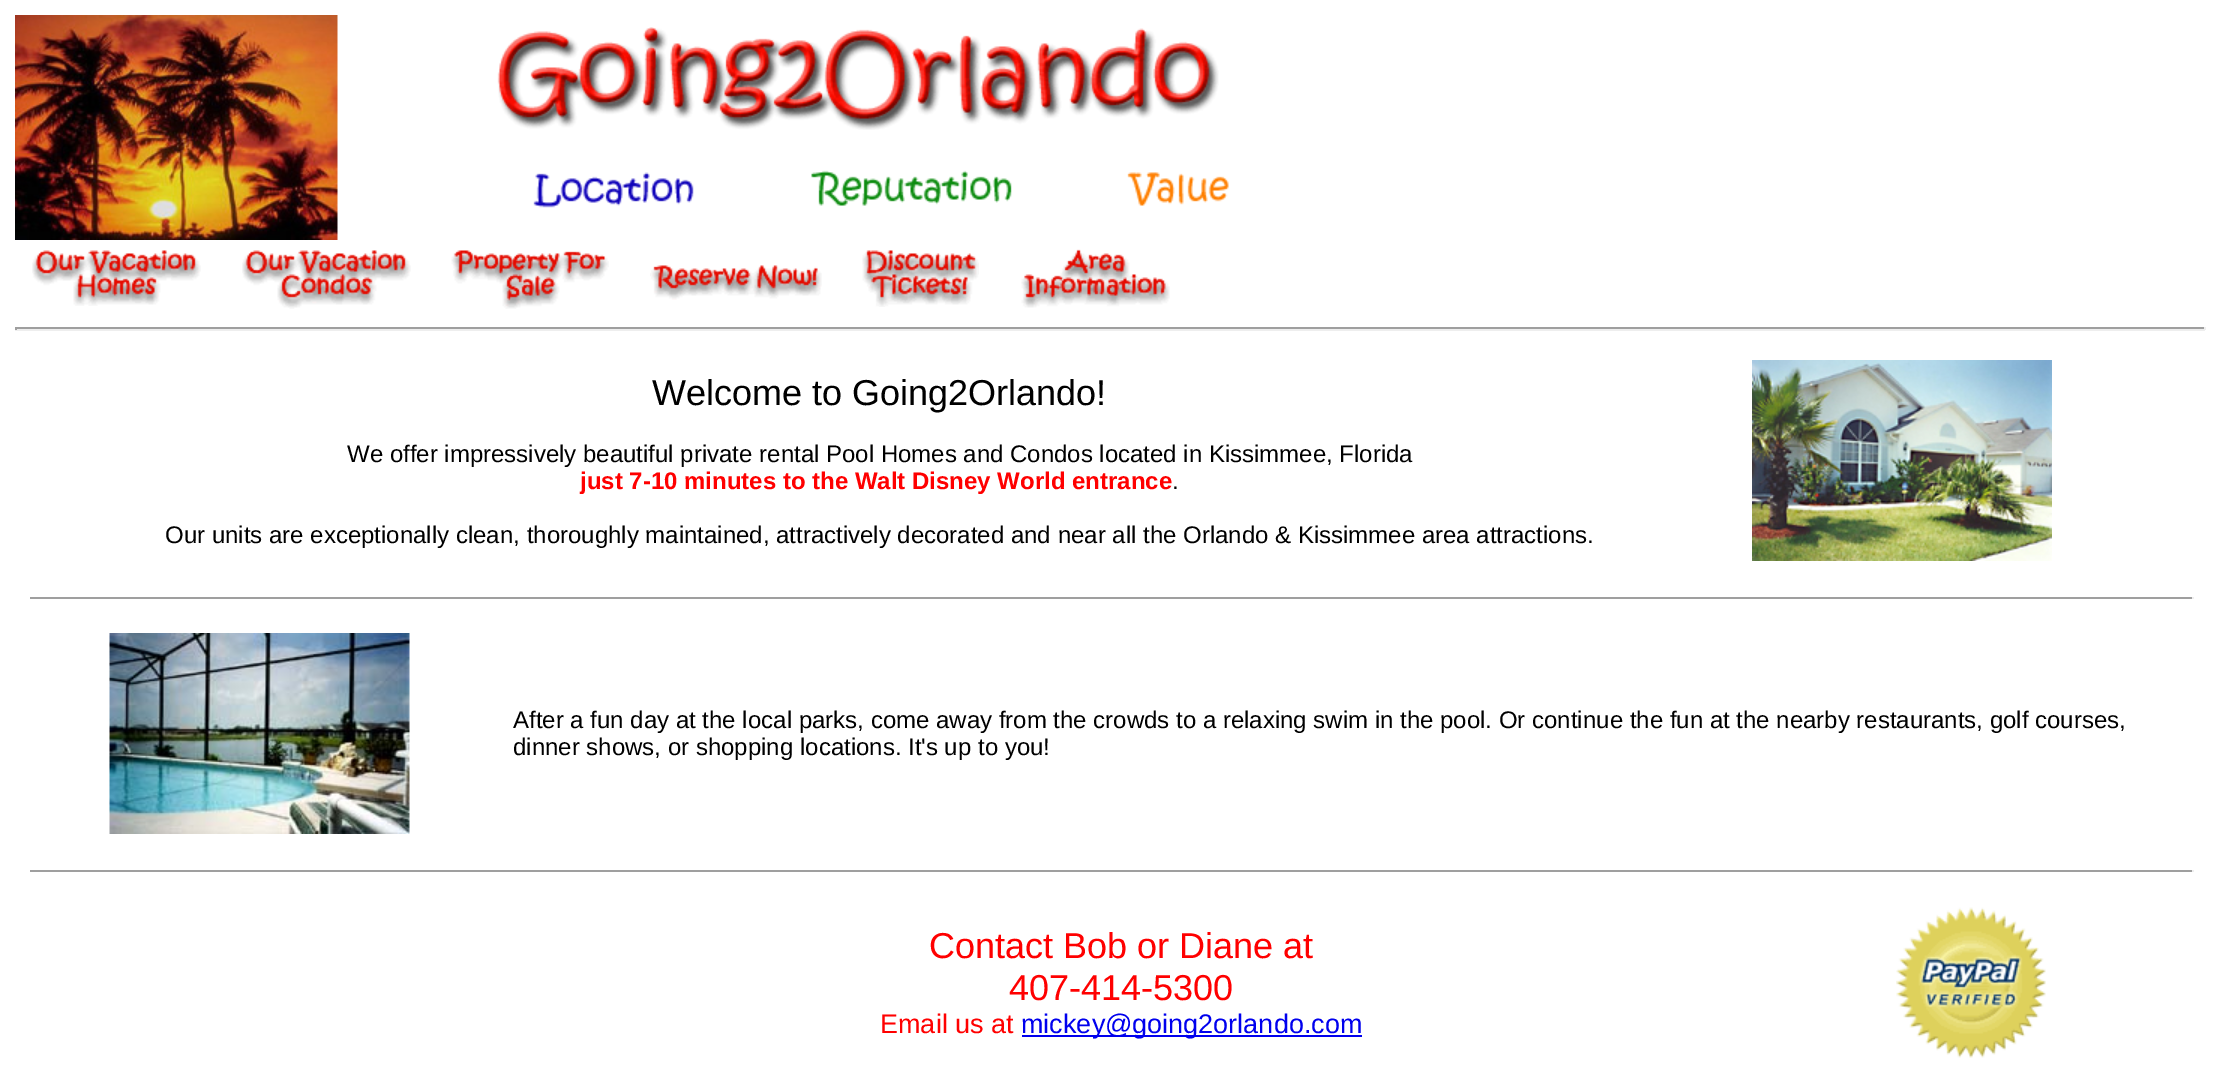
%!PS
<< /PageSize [2220 1065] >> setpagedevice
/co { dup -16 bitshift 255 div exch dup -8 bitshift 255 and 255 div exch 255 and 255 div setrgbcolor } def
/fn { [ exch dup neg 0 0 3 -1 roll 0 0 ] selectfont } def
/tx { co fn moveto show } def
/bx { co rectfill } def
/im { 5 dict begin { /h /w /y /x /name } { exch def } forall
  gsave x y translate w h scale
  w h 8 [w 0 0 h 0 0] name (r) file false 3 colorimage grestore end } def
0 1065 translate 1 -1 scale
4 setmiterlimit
0 0 2220 1065 16#FFFFFF bx
(media/1.raw) 15 15 323 225 im
(media/2.raw) 497 27 722 103 im
(media/3.raw) 533 170 696 38 im
(media/4.raw) 32 250 169 56 im
(media/5.raw) 242 250 169 59 im
(media/6.raw) 451 250 158 59 im
(media/7.raw) 862 250 117 57 im
(media/8.raw) 1021 249 149 59 im
(media/9.raw) 650 265 172 35 im
15 327 2190 2 16#9F9F9F bx
2204 327 2 3 16#EEEEEE bx
15 329 2190 2 16#EEEEEE bx
15 327 2 3 16#9F9F9F bx
(media/10.raw) 1752 360 300 201 im
30 597 2163 2 16#9F9F9F bx
2192 597 2 2 16#EEEEEE bx
(media/11.raw) 109 633 301 201 im
30 870 2163 2 16#9F9F9F bx
2192 870 2 2 16#EEEEEE bx
1022 1035 340 2 16#0000EE bx
(media/12.raw) 1896 907 150 151 im
(Welcome to Going2Orlando!) 652 405 /LiberationSans-Regular 36 16#000000 tx
(We offer impressively beautiful private rental Pool Homes and Condos located in Kissimmee, Florida) 347 462 /LiberationSans-Regular 24 16#000000 tx
(just 7-10 minutes to the Walt Disney World entrance) 580 489 /LiberationSans-Bold 24 16#FF0000 tx
(.) 1172 489 /LiberationSans-Regular 24 16#000000 tx
(Our units are exceptionally clean, thoroughly maintained, attractively decorated and near all the Orlando & Kissimmee area attractions.) 165 543 /LiberationSans-Regular 24 16#000000 tx
(After a fun day at the local parks, come away from the crowds to a relaxing swim in the pool. Or continue the fun at the nearby restaurants, golf courses,) 513 728 /LiberationSans-Regular 24 16#000000 tx
(dinner shows, or shopping locations. It's up to you!) 513 755 /LiberationSans-Regular 24 16#000000 tx
(Contact Bob or Diane at) 929 958 /LiberationSans-Regular 36 16#FF0000 tx
(407-414-5300) 1009 1000 /LiberationSans-Regular 36 16#FF0000 tx
(Email us at) 880 1033 /LiberationSans-Regular 27 16#FF0000 tx
(mickey@going2orlando.com) 1021 1033 /LiberationSans-Regular 27 16#0000EE tx
showpage
